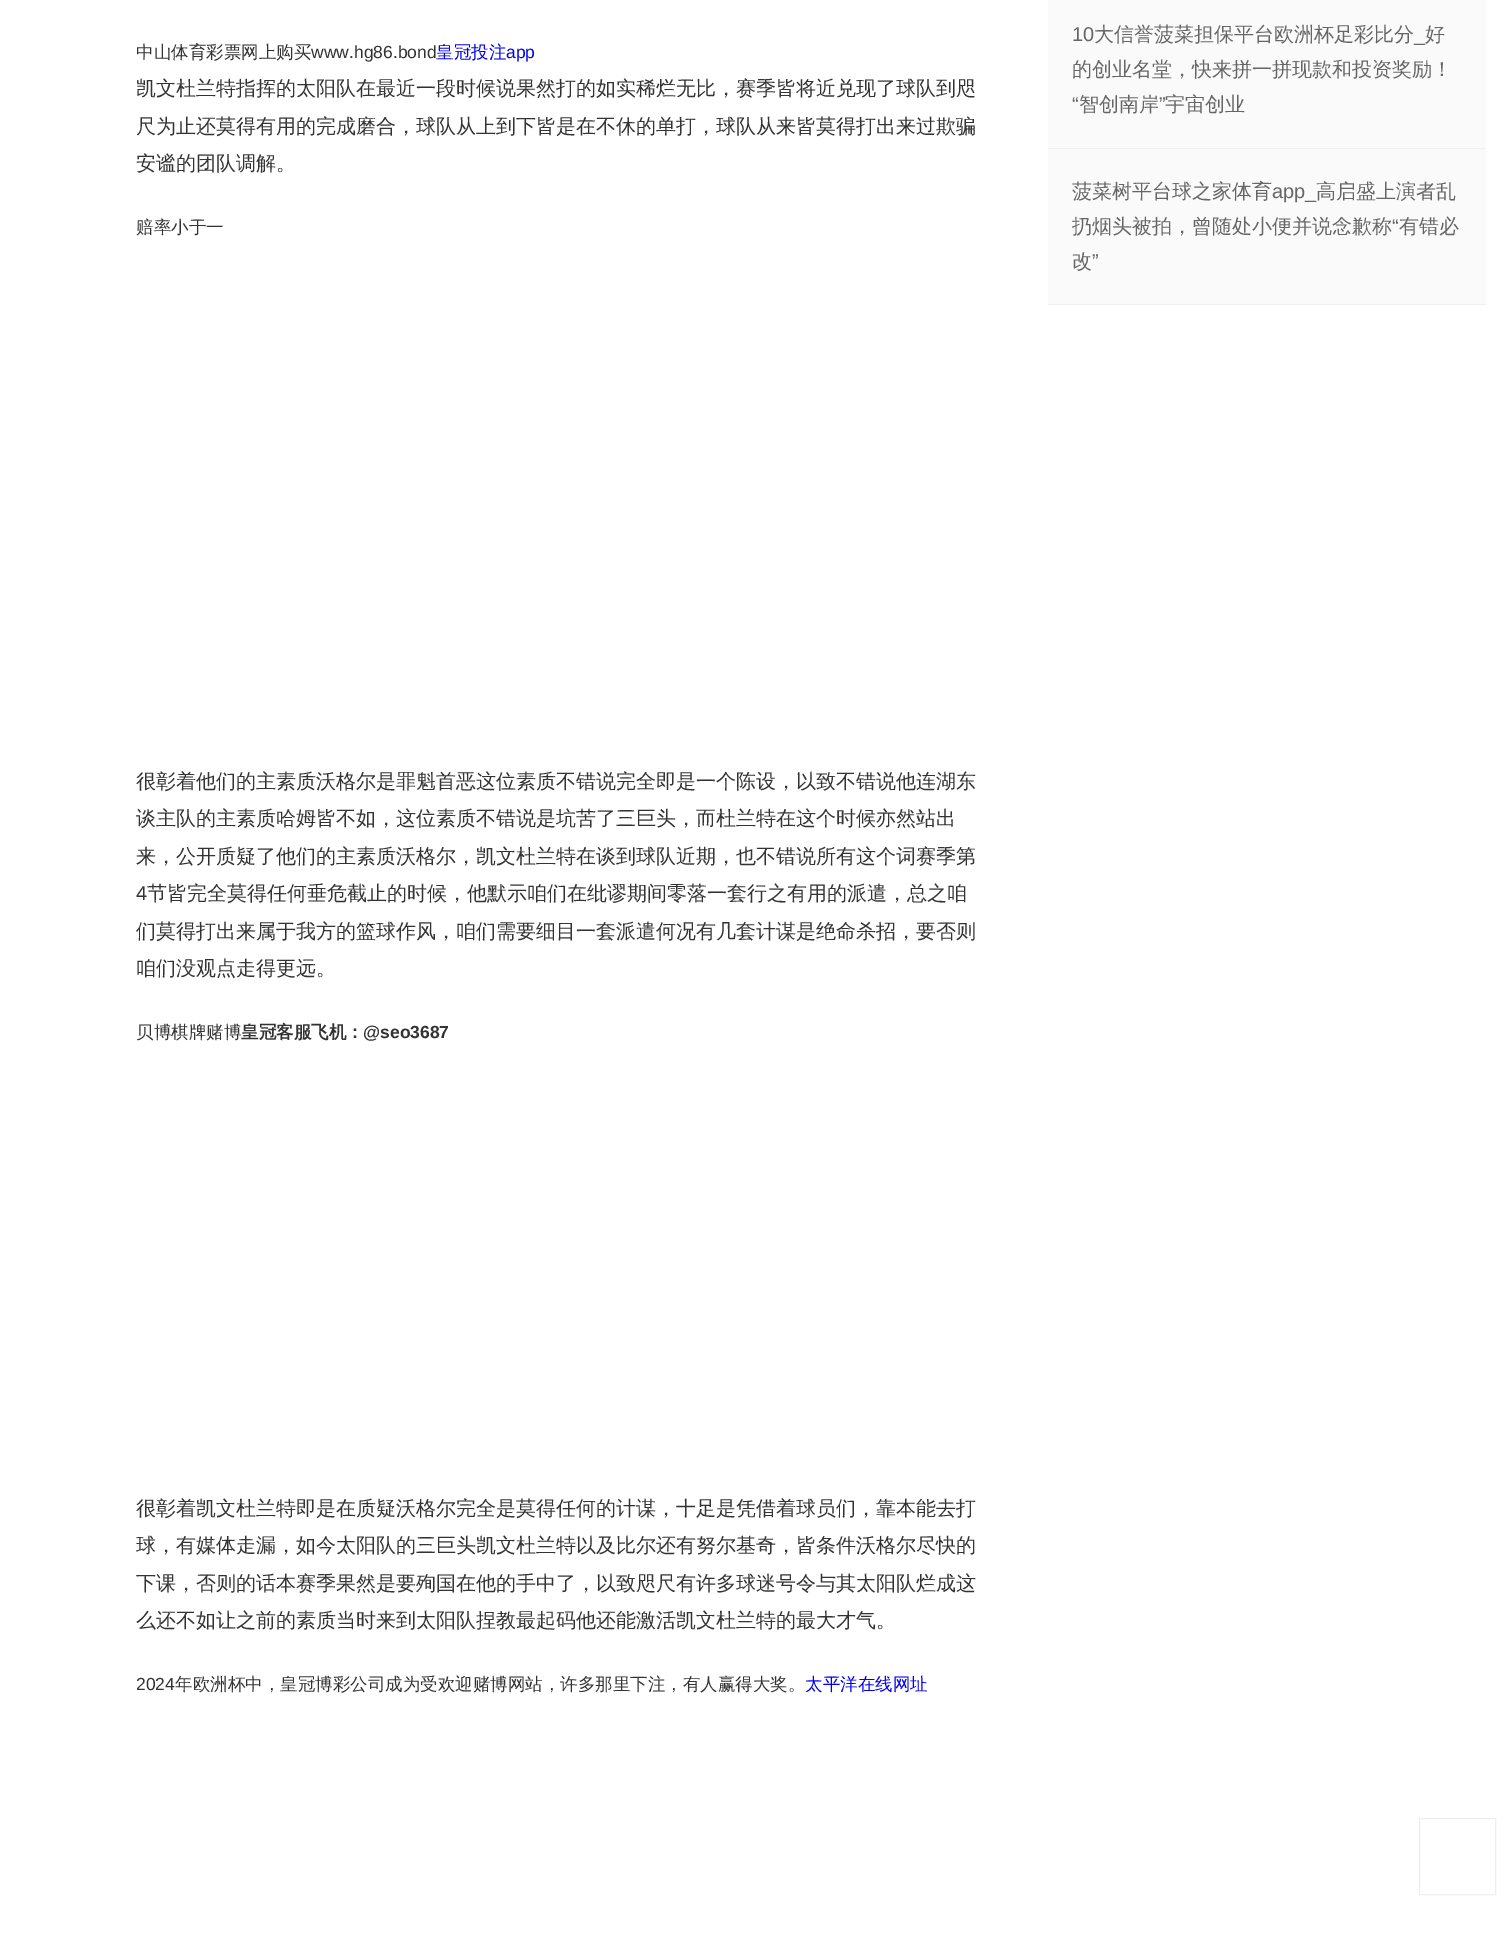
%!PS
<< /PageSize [1508 1957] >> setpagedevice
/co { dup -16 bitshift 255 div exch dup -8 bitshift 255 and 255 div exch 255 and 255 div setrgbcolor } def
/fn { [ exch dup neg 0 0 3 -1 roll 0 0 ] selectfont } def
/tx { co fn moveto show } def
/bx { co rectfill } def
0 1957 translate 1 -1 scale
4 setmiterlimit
0 0 1508 1957 16#FFFFFF bx
1048 0 438 304 16#FAFAFA bx
1048 148 438 1 16#F0F0F0 bx
1048 304 438 1 16#F0F0F0 bx
16#EEEEEE co
1419.5 1818.5 76 76 rectstroke
(中山体育彩票网上购买) 136 58 /WenQuanYiZenHei-Medium 17.5 16#333333 tx
(www.hg86.bond) 311 58 /LiberationSans-Regular 17.5 16#333333 tx
(皇冠投注) 436 58 /WenQuanYiZenHei-Medium 17.5 16#0000EE tx
(app) 506 58 /LiberationSans-Regular 17.5 16#0000EE tx
(凯文杜兰特指挥的太阳队在最近一段时候说果然打的如实稀烂无比，赛季皆将近兑现了球队到咫) 136 95 /WenQuanYiZenHei-Medium 20 16#333333 tx
(尺为止还莫得有用的完成磨合，球队从上到下皆是在不休的单打，球队从来皆莫得打出来过欺骗) 136 133 /WenQuanYiZenHei-Medium 20 16#333333 tx
(安谧的团队调解。) 136 170 /WenQuanYiZenHei-Medium 20 16#333333 tx
(赔率小于一) 136 233 /WenQuanYiZenHei-Medium 17.5 16#333333 tx
(很彰着他们的主素质沃格尔是罪魁首恶这位素质不错说完全即是一个陈设，以致不错说他连湖东) 136 788 /WenQuanYiZenHei-Medium 20 16#333333 tx
(谈主队的主素质哈姆皆不如，这位素质不错说是坑苦了三巨头，而杜兰特在这个时候亦然站出) 136 825 /WenQuanYiZenHei-Medium 20 16#333333 tx
(来，公开质疑了他们的主素质沃格尔，凯文杜兰特在谈到球队近期，也不错说所有这个词赛季第) 136 863 /WenQuanYiZenHei-Medium 20 16#333333 tx
(4) 136 900 /LiberationSans-Regular 20 16#333333 tx
(节皆完全莫得任何垂危截止的时候，他默示咱们在纰谬期间零落一套行之有用的派遣，总之咱) 147 900 /WenQuanYiZenHei-Medium 20 16#333333 tx
(们莫得打出来属于我方的篮球作风，咱们需要细目一套派遣何况有几套计谋是绝命杀招，要否则) 136 938 /WenQuanYiZenHei-Medium 20 16#333333 tx
(咱们没观点走得更远。) 136 975 /WenQuanYiZenHei-Medium 20 16#333333 tx
(贝博棋牌赌博) 136 1038 /WenQuanYiZenHei-Medium 17.5 16#333333 tx
(皇冠客服飞机：) 241 1038 /WenQuanYiZenHei-Bold 17.5 16#333333 tx
(@seo3687) 363 1038 /LiberationSans-Bold 17.5 16#333333 tx
(很彰着凯文杜兰特即是在质疑沃格尔完全是莫得任何的计谋，十足是凭借着球员们，靠本能去打) 136 1515 /WenQuanYiZenHei-Medium 20 16#333333 tx
(球，有媒体走漏，如今太阳队的三巨头凯文杜兰特以及比尔还有努尔基奇，皆条件沃格尔尽快的) 136 1552 /WenQuanYiZenHei-Medium 20 16#333333 tx
(下课，否则的话本赛季果然是要殉国在他的手中了，以致咫尺有许多球迷号令与其太阳队烂成这) 136 1590 /WenQuanYiZenHei-Medium 20 16#333333 tx
(么还不如让之前的素质当时来到太阳队捏教最起码他还能激活凯文杜兰特的最大才气。) 136 1627 /WenQuanYiZenHei-Medium 20 16#333333 tx
(2024) 136 1690 /LiberationSans-Regular 17.5 16#333333 tx
(年欧洲杯中，皇冠博彩公司成为受欢迎赌博网站，许多那里下注，有人赢得大奖。) 175 1690 /WenQuanYiZenHei-Medium 17.5 16#333333 tx
(太平洋在线网址) 805 1690 /WenQuanYiZenHei-Medium 17.5 16#0000EE tx
(10) 1072 41 /LiberationSans-Regular 20 16#666666 tx
(大信誉菠菜担保平台欧洲杯足彩比分) 1094 41 /WenQuanYiZenHei-Medium 20 16#666666 tx
(_) 1414 41 /LiberationSans-Regular 20 16#666666 tx
(好) 1425 41 /WenQuanYiZenHei-Medium 20 16#666666 tx
(的创业名堂，快来拼一拼现款和投资奖励！) 1072 76 /WenQuanYiZenHei-Medium 20 16#666666 tx
(“) 1072 111 /LiberationSans-Regular 20 16#666666 tx
(智创南岸) 1079 111 /WenQuanYiZenHei-Medium 20 16#666666 tx
(”) 1159 111 /LiberationSans-Regular 20 16#666666 tx
(宇宙创业) 1165 111 /WenQuanYiZenHei-Medium 20 16#666666 tx
(菠菜树平台球之家体育) 1072 198 /WenQuanYiZenHei-Medium 20 16#666666 tx
(app_) 1272 198 /LiberationSans-Regular 20 16#666666 tx
(高启盛上演者乱) 1316 198 /WenQuanYiZenHei-Medium 20 16#666666 tx
(扔烟头被拍，曾随处小便并说念歉称) 1072 233 /WenQuanYiZenHei-Medium 20 16#666666 tx
(“) 1392 233 /LiberationSans-Regular 20 16#666666 tx
(有错必) 1399 233 /WenQuanYiZenHei-Medium 20 16#666666 tx
(改) 1072 268 /WenQuanYiZenHei-Medium 20 16#666666 tx
(”) 1092 268 /LiberationSans-Regular 20 16#666666 tx
showpage
